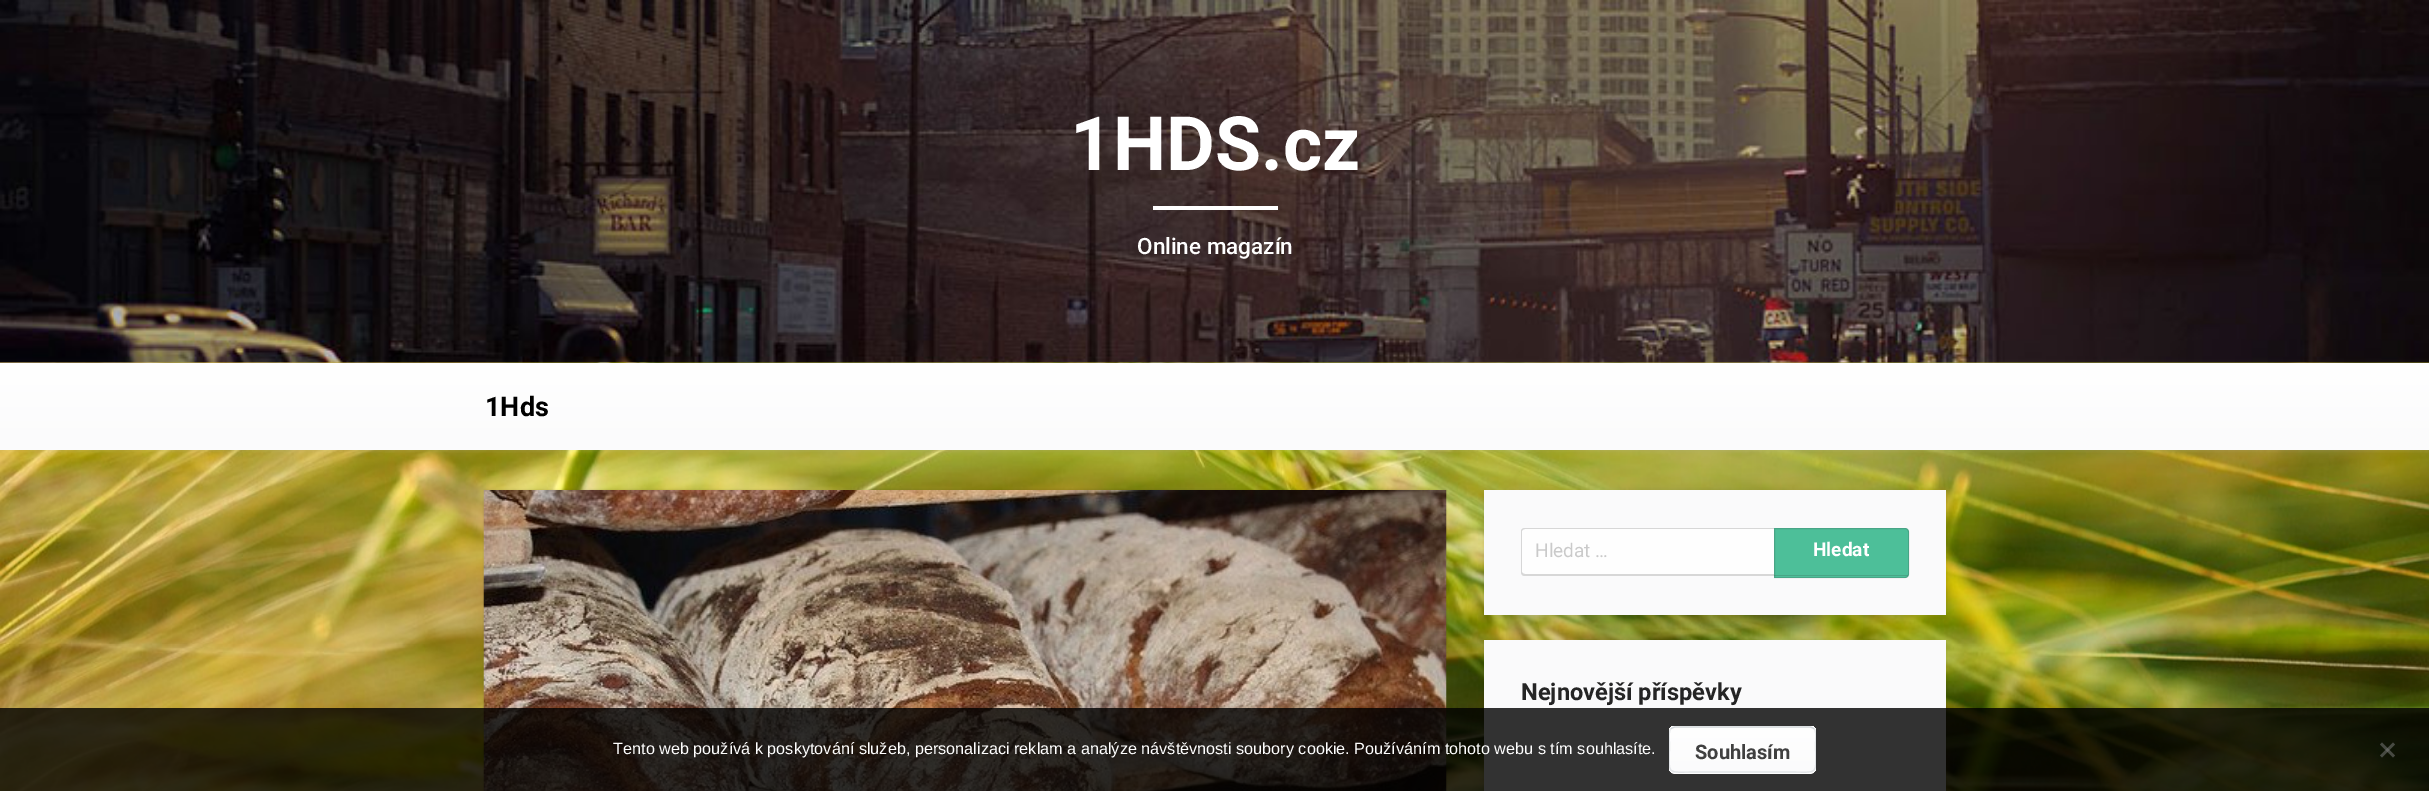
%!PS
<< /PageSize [2429 791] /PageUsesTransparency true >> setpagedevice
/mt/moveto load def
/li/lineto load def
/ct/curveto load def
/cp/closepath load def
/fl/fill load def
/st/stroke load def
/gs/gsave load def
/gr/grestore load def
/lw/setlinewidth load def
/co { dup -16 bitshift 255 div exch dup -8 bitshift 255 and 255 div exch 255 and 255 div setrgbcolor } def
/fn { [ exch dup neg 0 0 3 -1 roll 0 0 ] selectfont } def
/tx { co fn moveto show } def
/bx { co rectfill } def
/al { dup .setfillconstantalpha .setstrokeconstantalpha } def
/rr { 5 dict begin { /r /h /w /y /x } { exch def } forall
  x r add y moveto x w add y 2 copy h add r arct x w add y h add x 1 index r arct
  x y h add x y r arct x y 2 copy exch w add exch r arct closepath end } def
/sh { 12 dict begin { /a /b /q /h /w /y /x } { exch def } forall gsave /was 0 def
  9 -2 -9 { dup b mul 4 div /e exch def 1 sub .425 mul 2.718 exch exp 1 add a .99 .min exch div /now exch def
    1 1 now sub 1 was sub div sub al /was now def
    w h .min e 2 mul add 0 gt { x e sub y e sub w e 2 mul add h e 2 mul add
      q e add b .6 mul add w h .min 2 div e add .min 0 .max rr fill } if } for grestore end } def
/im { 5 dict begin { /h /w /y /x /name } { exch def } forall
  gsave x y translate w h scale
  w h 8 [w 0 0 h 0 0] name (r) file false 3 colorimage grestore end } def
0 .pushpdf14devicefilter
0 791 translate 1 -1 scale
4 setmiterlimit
0 0 2429 791 16#FFFFFF bx
(media/1.raw) 0 362 2429 429 im
(media/2.raw) 0 0 2429 363 im
1153 206 125 4 16#FFFFFF bx
16#BEBEBE co
0 364 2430 87 0 2 .2 sh
gs 0 363 mt 2429 363 li 2429 450 li 0 450 li cp clip newpath
<< /ShadingType 2 /ColorSpace /DeviceRGB /Coords [1215 362 1215 450] /Extend [true true] /Function << /FunctionType 2 /Domain [0 1] /C0 [1 1 1] /C1 [.984 .984 .988] /N 1 >> >> shfill gr
16#000000 co
484 490 962 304 0 1 .15 sh
(media/3.raw) 483 490 964 301 im
1484 493 462 125 0 2.5 .1 sh
1484 490 462 125 16#FAFAFB bx
16#FEFEFE co
1525 528 mt 1774 528 li 1774 576 li 1525 576 li 1523 576 1521 574 1521 572 ct 1521 532 li 1521 530 1523 528 1525 528 ct cp fl
16#D7D7D7 co
1525 528 mt 1774 528 li 1774 576 li 1525 576 li 1523 576 1521 575 1521 572 ct 1521 531 li 1521 529 1523 528 1525 528 ct cp 1525 529 mt 1774 529 li 1774 574 li 1525 574 li 1524 574 1522 573 1522 572 ct 1522 531 li 1522 530 1524 529 1525 529 ct cp eofill
16#4DBF99 co
1774 528 mt 1905 528 li 1907 528 1909 530 1909 532 ct 1909 574 li 1909 576 1907 578 1905 578 ct 1774 578 li cp fl
0.19 al
16#333333 co
1774.5 528.5 mt 1905 528.5 li 1907 528.5 1908.5 530 1908.5 532 ct 1908.5 574 li 1908.5 576 1907 577.5 1905 577.5 ct 1774.5 577.5 li cp st
1774 575 134 1 16#333333 bx
1 al
16#000000 co
1484 643 462 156 0 2.5 .1 sh
1484 640 462 151 16#FAFAFB bx
0.8 al
0 708 2429 83 16#000000 bx
1 al
16#FFFFFF co
1669 768 mt 1669 771 1672 774 1675 774 ct 1810 774 li 1813 774 1816 771 1816 768 ct 1815 771 1813 772 1810 772 ct 1675 772 li 1672 772 1670 771 1669 768 ct cp fl
gs 1669 726 147 47 6 rr clip newpath
<< /ShadingType 2 /ColorSpace /DeviceRGB /Coords [1743 726 1743 773] /Extend [true true] /Function << /FunctionType 2 /Domain [0 1] /C0 [1 1 1] /C1 [.984 .984 .988] /N 1 >> >> shfill gr
0.2 al
16#1A3547 co
1.2 lw
1671 728.5 mt 1674.5 727 li 1810.5 727 li 1814 728.5 li st
0.11 al
1814 728.5 mt 1817 731.5 1815.5 740 1815.5 744 ct 1815.5 776.5 1821 772 1787.5 772 ct 1697.5 772 li 1664 772 1669.5 776.5 1669.5 744 ct 1669.5 740 1668 731.5 1671 728.5 ct st
0.5 al
16#808080 co
2393 742.5 mt 2395 744.5 li 2382 757.5 li 2380 755.5 li cp fl
2380 744.5 mt 2382 742.5 li 2395 755.5 li 2393 757.5 li cp fl
1 al
(1HDS.cz) 1070 170 /Roboto-Bold 75 16#FFFFFF tx
(Online magazín) 1137 254 /Roboto-Medium 22.5 16#FFFFFF tx
(1Hds) 485 416 /Roboto-Bold 27 16#000000 tx
(Hledat …) 1535 557 /Roboto-Regular 19 16#CACACA tx
(Hledat) 1813 556 /Roboto-Bold 19 16#FFFFFF tx
(Nejnovější příspěvky) 1521 700 /Roboto-Bold 23.6 16#252525 tx
(Tento web používá k poskytování služeb, personalizaci reklam a analýze návštěvnosti soubory cookie. Používáním tohoto webu s tím souhlasíte.) 613 754 /LiberationSans-Regular 16.25 16#FFFFFF tx
(Souhlasím) 1695 759 /Roboto-Bold 20 16#404040 tx
.poppdf14devicefilter showpage
